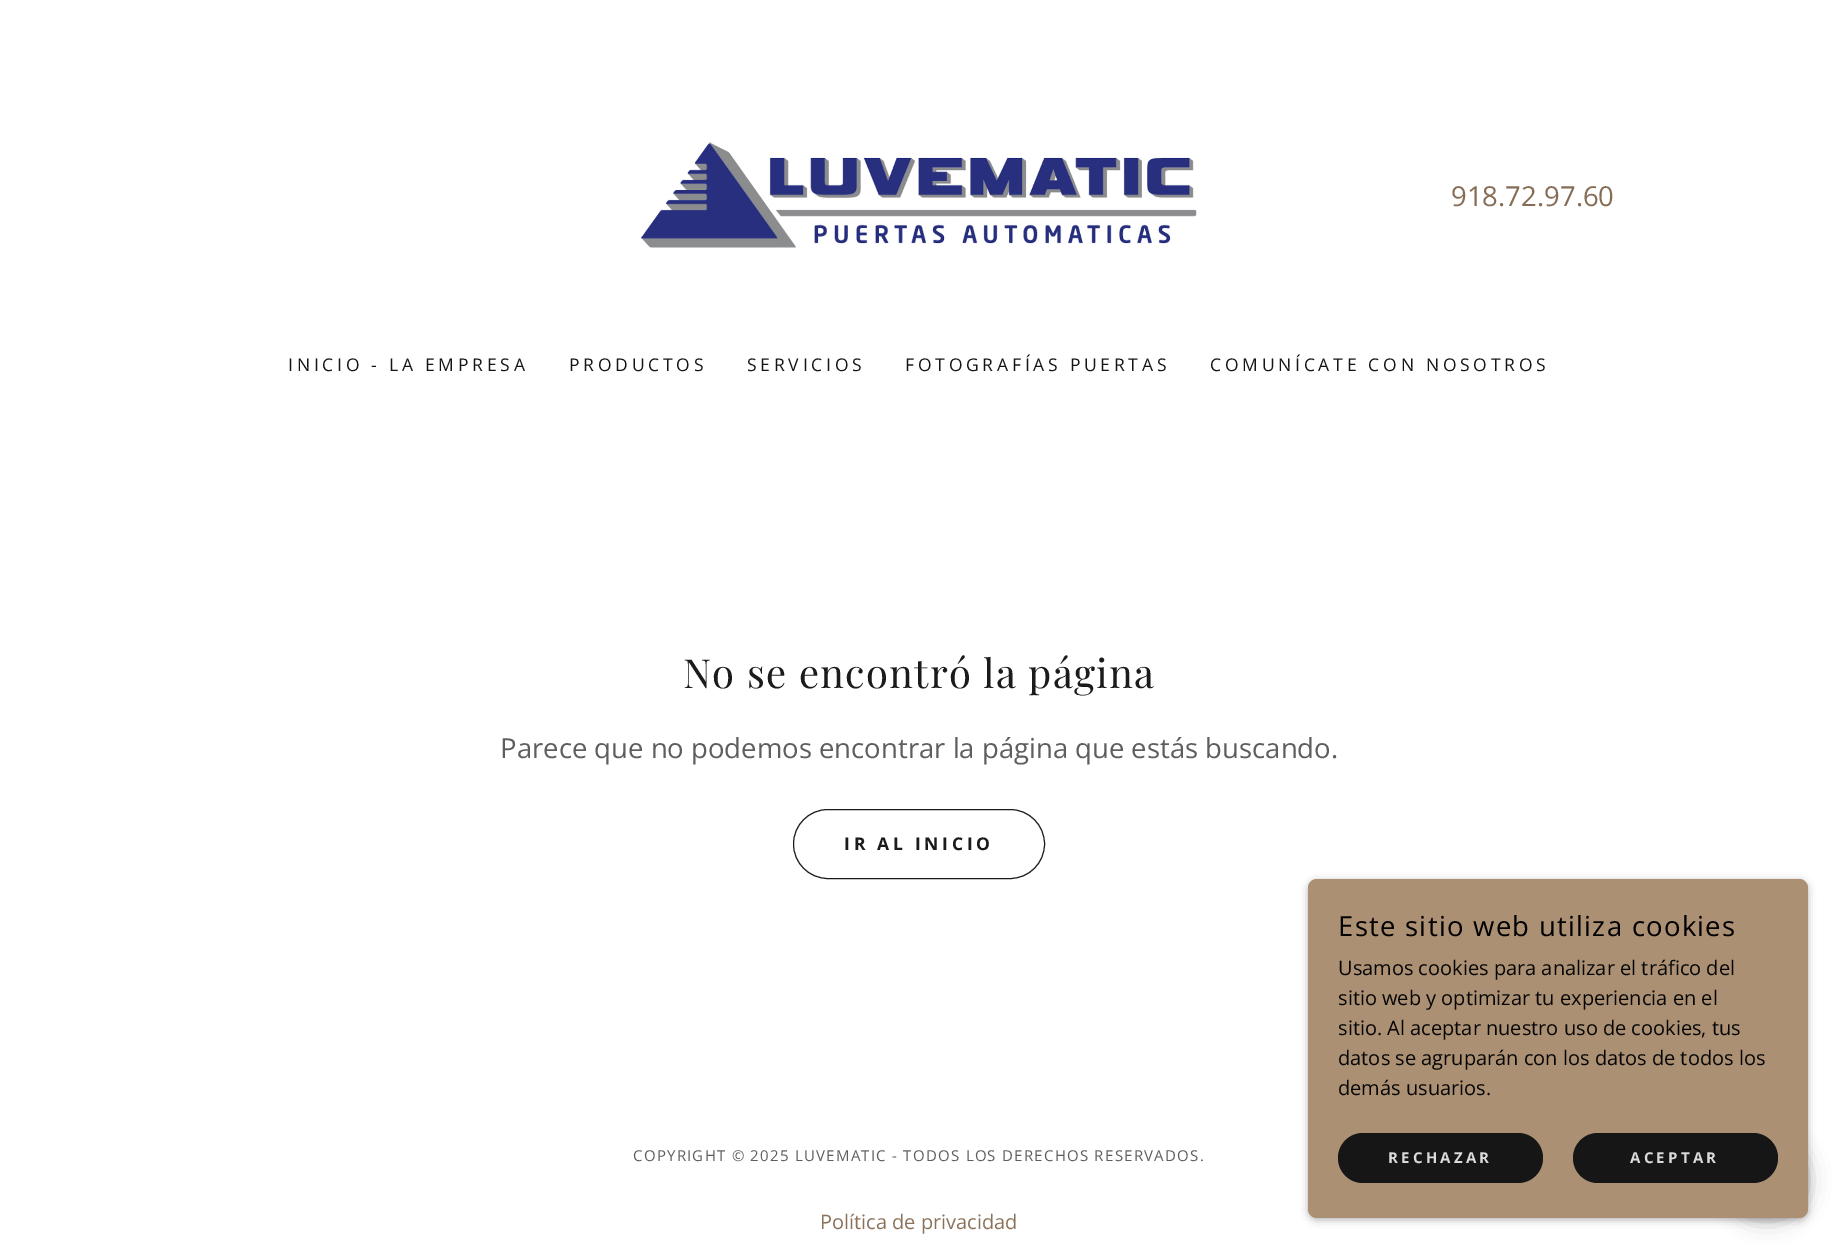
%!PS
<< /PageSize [1837 1247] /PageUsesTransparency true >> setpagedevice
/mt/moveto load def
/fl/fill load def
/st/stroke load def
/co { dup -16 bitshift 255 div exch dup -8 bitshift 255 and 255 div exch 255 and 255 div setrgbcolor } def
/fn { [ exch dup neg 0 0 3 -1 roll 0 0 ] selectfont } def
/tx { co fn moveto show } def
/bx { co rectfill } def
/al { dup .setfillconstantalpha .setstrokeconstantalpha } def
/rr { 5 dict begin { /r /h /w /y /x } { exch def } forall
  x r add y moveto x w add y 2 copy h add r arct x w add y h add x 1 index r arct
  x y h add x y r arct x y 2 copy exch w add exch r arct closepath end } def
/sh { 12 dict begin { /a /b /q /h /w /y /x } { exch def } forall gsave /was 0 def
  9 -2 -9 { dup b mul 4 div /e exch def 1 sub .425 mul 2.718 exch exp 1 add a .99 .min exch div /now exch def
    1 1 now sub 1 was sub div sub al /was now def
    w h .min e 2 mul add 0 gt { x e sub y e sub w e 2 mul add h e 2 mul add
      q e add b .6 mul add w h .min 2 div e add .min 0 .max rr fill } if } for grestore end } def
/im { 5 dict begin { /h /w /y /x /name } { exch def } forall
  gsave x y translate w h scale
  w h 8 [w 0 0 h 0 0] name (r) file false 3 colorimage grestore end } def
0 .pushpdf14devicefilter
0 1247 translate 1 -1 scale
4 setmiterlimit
0 0 1837 1247 16#FFFFFF bx
(media/1.raw) 641 142 556 106 im
16#1B1B1B co
793.5 809.5 251 69 34.5 rr st
16#000000 co
1308 881 500 339 9 4 .3 sh
1726 1140 82 81 40.5 11 .25 sh
16#AC9073 co
1308 879 500 339 9 rr fl
16#161616 co
1338 1133 205 50 25 rr fl
1573 1133 205 50 25 rr fl
(918.72.97.60) 1451 206 /OpenSans-Regular 27.5 16#856C54 tx
/OpenSans-Regular 17.5 fn
16#151515 co
288 371 mt 3.75 0 (INICIO - LA EMPRESA) ashow
569 371 mt 3.75 0 (PRODUCTOS) ashow
747 371 mt 3.75 0 (SERVICIOS) ashow
905 371 mt 3.75 0 (FOTOGRAFÍAS PUERTAS) ashow
1210 371 mt 3.75 0 (COMUNÍCATE CON NOSOTROS) ashow
/PlayfairDisplay-Regular 40 fn
16#1B1B1B co
683 688 mt 1.25 0 (No se encontró la página) ashow
(Parece que no podemos encontrar la página que estás buscando.) 500 758 /OpenSans-Regular 27.5 16#5E5E5E tx
/OpenSans-Bold 17.5 fn
16#1B1B1B co
844 850 mt 3.75 0 (IR AL INICIO) ashow
/OpenSans-Regular 15 fn
16#5E5E5E co
633 1161 mt 1.25 0 (COPYRIGHT © 2025 LUVEMATIC - TODOS LOS DERECHOS RESERVADOS.) ashow
(Política de privacidad) 820 1229 /OpenSans-Regular 20 16#8A725A tx
/OpenSans-Regular 27.5 fn
16#000000 co
1338 936 mt 1.25 0 (Este sitio web utiliza cookies) ashow
(Usamos cookies para analizar el tráfico del) 1338 975 /OpenSans-Regular 20 16#060606 tx
(sitio web y optimizar tu experiencia en el) 1338 1005 /OpenSans-Regular 20 16#060606 tx
(sitio. Al aceptar nuestro uso de cookies, tus) 1338 1035 /OpenSans-Regular 20 16#060606 tx
(datos se agruparán con los datos de todos los) 1338 1065 /OpenSans-Regular 20 16#060606 tx
(demás usuarios.) 1338 1095 /OpenSans-Regular 20 16#060606 tx
/OpenSans-Bold 15 fn
16#DBDBDB co
1388 1163 mt 3.25 0 (RECHAZAR) ashow
1630 1163 mt 3.25 0 (ACEPTAR) ashow
.poppdf14devicefilter showpage
